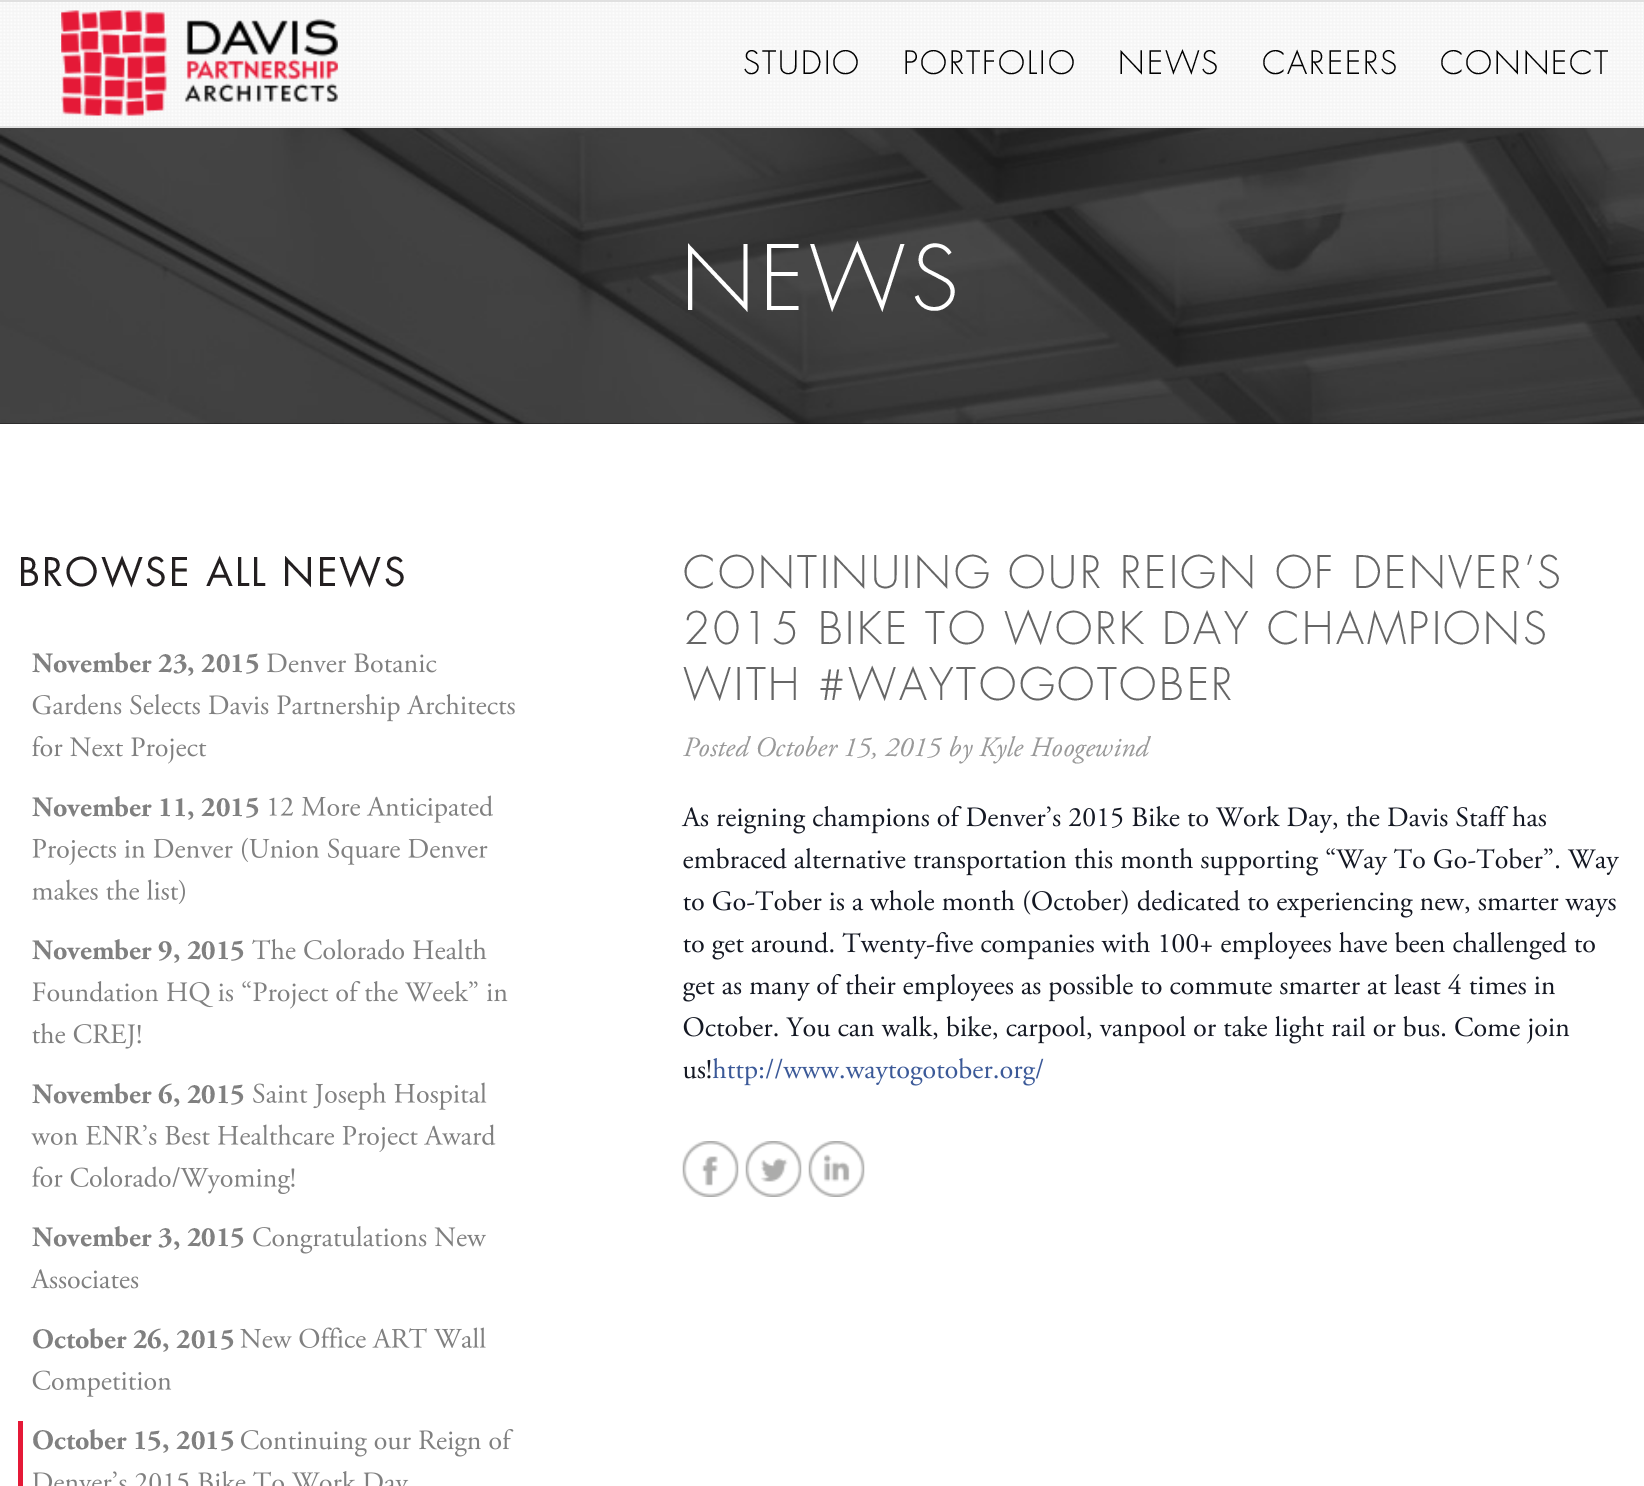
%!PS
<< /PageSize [1644 1486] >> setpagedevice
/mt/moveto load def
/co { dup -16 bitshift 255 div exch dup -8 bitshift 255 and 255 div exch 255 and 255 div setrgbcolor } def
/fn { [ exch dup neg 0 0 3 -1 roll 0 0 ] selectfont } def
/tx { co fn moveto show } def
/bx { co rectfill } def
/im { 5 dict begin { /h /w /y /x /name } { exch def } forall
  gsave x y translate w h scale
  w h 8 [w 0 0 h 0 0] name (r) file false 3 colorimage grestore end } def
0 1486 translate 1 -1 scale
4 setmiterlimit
0 0 1644 1486 16#FFFFFF bx
0 2 1644 124 16#F5F5F5 bx
(media/1.raw) 0 2 1643 124 im
0 0 1644 2 16#E0E0E0 bx
0 126 1644 2 16#E0E0E0 bx
(media/2.raw) 61 10 277 106 im
0 423 1644 1 16#1A1717 bx
(media/3.raw) 0 128 1644 296 im
(media/4.raw) 267 653 170 20 im
(media/5.raw) 32 694 483 28 im
(media/6.raw) 32 736 175 28 im
(media/7.raw) 269 795 224 28 im
(media/8.raw) 32 837 456 28 im
(media/9.raw) 32 879 153 25 im
(media/10.raw) 252 939 235 21 im
(media/11.raw) 32 981 476 28 im
(media/12.raw) 32 1023 109 26 im
(media/13.raw) 253 1082 234 28 im
(media/14.raw) 31 1124 465 28 im
(media/15.raw) 32 1166 263 28 im
(media/16.raw) 253 1226 233 28 im
(media/17.raw) 30 1269 109 20 im
(media/18.raw) 240 1327 246 21 im
(media/19.raw) 32 1370 140 27 im
18 1421 5 65 16#E51937 bx
(media/20.raw) 241 1429 273 28 im
(media/21.raw) 33 1471 376 15 im
(media/22.raw) 681 806 865 28 im
(media/23.raw) 683 848 936 28 im
(media/24.raw) 683 890 933 28 im
(media/25.raw) 683 932 912 28 im
(media/26.raw) 683 974 872 28 im
(media/27.raw) 683 1016 887 28 im
(media/28.raw) 683 1059 28 20 im
(media/29.raw) 712 1058 332 28 im
(media/30.raw) 682 1141 57 56 im
(media/31.raw) 745 1141 57 56 im
(media/32.raw) 808 1141 57 56 im
/Futura-Light 31.5 fn
16#000000 co
743 74 mt 2 0 (STUDIO) ashow
903 74 mt 2 0 (PORTFOLIO) ashow
1118 74 mt 2 0 (NEWS) ashow
1262 74 mt 2 0 (CAREERS) ashow
1440 74 mt 2 0 (CONNECT) ashow
/Futura-Light 87.5 fn
16#FFFFFF co
681 310 mt 5 0 (NEWS) ashow
/Futura-Regular 38.5 fn
16#231F20 co
18 586 mt 2.25 0 (BROWSE ALL NEWS) ashow
(November 23, 2015) 32 672 /AdobeGaramond-Bold 28 16#808080 tx
(November 11, 2015) 32 816 /AdobeGaramond-Bold 28 16#808080 tx
(November 9, 2015) 32 959 /AdobeGaramond-Bold 28 16#808080 tx
(November 6, 2015) 32 1103 /AdobeGaramond-Bold 28 16#808080 tx
(November 3, 2015) 32 1246 /AdobeGaramond-Bold 28 16#808080 tx
(October 26, 2015) 32 1348 /AdobeGaramond-Bold 28 16#808080 tx
(October 15, 2015) 32 1449 /AdobeGaramond-Bold 28 16#808080 tx
/Futura-Light 43.75 fn
16#666666 co
683 588 mt 2.6 0 (CONTINUING OUR REIGN OF DENVER’S) ashow
683 644 mt 2.6 0 (2015 BIKE TO WORK DAY CHAMPIONS) ashow
683 700 mt 2.6 0 (WITH #WAYTOGOTOBER) ashow
(Posted October 15, 2015 by Kyle Hoogewind) 683 756 /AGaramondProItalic-Italic 28 16#999999 tx
showpage
